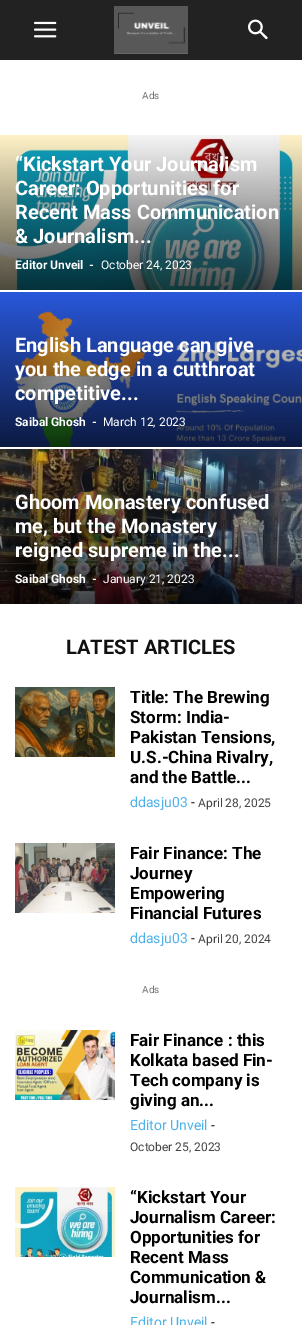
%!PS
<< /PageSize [302 1325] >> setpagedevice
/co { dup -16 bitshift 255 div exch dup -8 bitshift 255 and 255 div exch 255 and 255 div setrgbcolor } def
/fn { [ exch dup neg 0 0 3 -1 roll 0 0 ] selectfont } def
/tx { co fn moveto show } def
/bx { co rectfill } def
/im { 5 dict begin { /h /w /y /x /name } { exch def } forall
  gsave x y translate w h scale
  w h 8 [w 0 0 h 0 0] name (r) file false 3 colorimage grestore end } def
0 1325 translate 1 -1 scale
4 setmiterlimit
0 0 302 1325 16#FFFFFF bx
0 0 302 60 16#222222 bx
(media/1.raw) 34 21 23 17 im
(media/2.raw) 114 6 74 48 im
(media/3.raw) 248 19 20 21 im
(media/4.raw) 0 135 302 155 im
(media/5.raw) 0 292 302 155 im
(media/6.raw) 0 449 302 155 im
(media/7.raw) 15 687 100 70 im
(media/8.raw) 15 843 100 70 im
(media/9.raw) 15 1030 100 70 im
(media/10.raw) 15 1187 100 70 im
(Ads) 142 99 /Roboto-Regular 10 16#767676 tx
(“Kickstart Your Journalism) 15 171 /Roboto-Bold 20 16#FFFFFF tx
(Career: Opportunities for) 15 195 /Roboto-Bold 20 16#FFFFFF tx
(Recent Mass Communication) 15 219 /Roboto-Bold 20 16#FFFFFF tx
(& Journalism...) 15 243 /Roboto-Bold 20 16#FFFFFF tx
(Editor Unveil) 15 269 /Roboto-Bold 12 16#FFFFFF tx
(-) 89 269 /Roboto-Bold 12 16#FFFFFF tx
(October 24, 2023) 101 269 /Roboto-Regular 12 16#FFFFFF tx
(English Language can give) 15 352 /Roboto-Bold 20 16#FFFFFF tx
(you the edge in a cutthroat) 15 376 /Roboto-Bold 20 16#FFFFFF tx
(competitive...) 15 400 /Roboto-Bold 20 16#FFFFFF tx
(Saibal Ghosh) 15 426 /Roboto-Bold 12 16#FFFFFF tx
(-) 92 426 /Roboto-Bold 12 16#FFFFFF tx
(March 12, 2023) 103 426 /Roboto-Regular 12 16#FFFFFF tx
(Ghoom Monastery confused) 15 509 /Roboto-Bold 20 16#FFFFFF tx
(me, but the Monastery) 15 533 /Roboto-Bold 20 16#FFFFFF tx
(reigned supreme in the...) 15 557 /Roboto-Bold 20 16#FFFFFF tx
(Saibal Ghosh) 15 583 /Roboto-Bold 12 16#FFFFFF tx
(-) 92 583 /Roboto-Bold 12 16#FFFFFF tx
(January 21, 2023) 103 583 /Roboto-Regular 12 16#FFFFFF tx
(LATEST ARTICLES) 66 654 /Roboto-Bold 20 16#111111 tx
(Title: The Brewing) 130 703 /Roboto-Bold 17 16#000000 tx
(Storm: India-) 130 723 /Roboto-Bold 17 16#000000 tx
(Pakistan Tensions,) 130 743 /Roboto-Bold 17 16#000000 tx
(U.S.-China Rivalry,) 130 763 /Roboto-Bold 17 16#000000 tx
(and the Battle...) 130 783 /Roboto-Bold 17 16#000000 tx
(ddasju03) 130 807 /Roboto-Regular 14 16#4DB2EC tx
(-) 191 807 /Roboto-Regular 14 16#000000 tx
(April 28, 2025) 198 807 /Roboto-Regular 12 16#444444 tx
(Fair Finance: The) 130 859 /Roboto-Bold 17 16#000000 tx
(Journey) 130 879 /Roboto-Bold 17 16#000000 tx
(Empowering) 130 899 /Roboto-Bold 17 16#000000 tx
(Financial Futures) 130 919 /Roboto-Bold 17 16#000000 tx
(ddasju03) 130 943 /Roboto-Regular 14 16#4DB2EC tx
(-) 191 943 /Roboto-Regular 14 16#000000 tx
(April 20, 2024) 198 943 /Roboto-Regular 12 16#444444 tx
(Ads) 142 993 /Roboto-Regular 10 16#767676 tx
(Fair Finance : this) 130 1046 /Roboto-Bold 17 16#000000 tx
(Kolkata based Fin-) 130 1066 /Roboto-Bold 17 16#000000 tx
(Tech company is) 130 1086 /Roboto-Bold 17 16#000000 tx
(giving an...) 130 1106 /Roboto-Bold 17 16#000000 tx
(Editor Unveil) 130 1130 /Roboto-Regular 14 16#4DB2EC tx
(-) 211 1130 /Roboto-Regular 14 16#000000 tx
(October 25, 2023) 130 1151 /Roboto-Regular 12 16#444444 tx
(“Kickstart Your) 130 1203 /Roboto-Bold 17 16#000000 tx
(Journalism Career:) 130 1223 /Roboto-Bold 17 16#000000 tx
(Opportunities for) 130 1243 /Roboto-Bold 17 16#000000 tx
(Recent Mass) 130 1263 /Roboto-Bold 17 16#000000 tx
(Communication &) 130 1283 /Roboto-Bold 17 16#000000 tx
(Journalism...) 130 1303 /Roboto-Bold 17 16#000000 tx
(Editor Unveil) 130 1327 /Roboto-Regular 14 16#4DB2EC tx
(-) 211 1327 /Roboto-Regular 14 16#000000 tx
showpage
